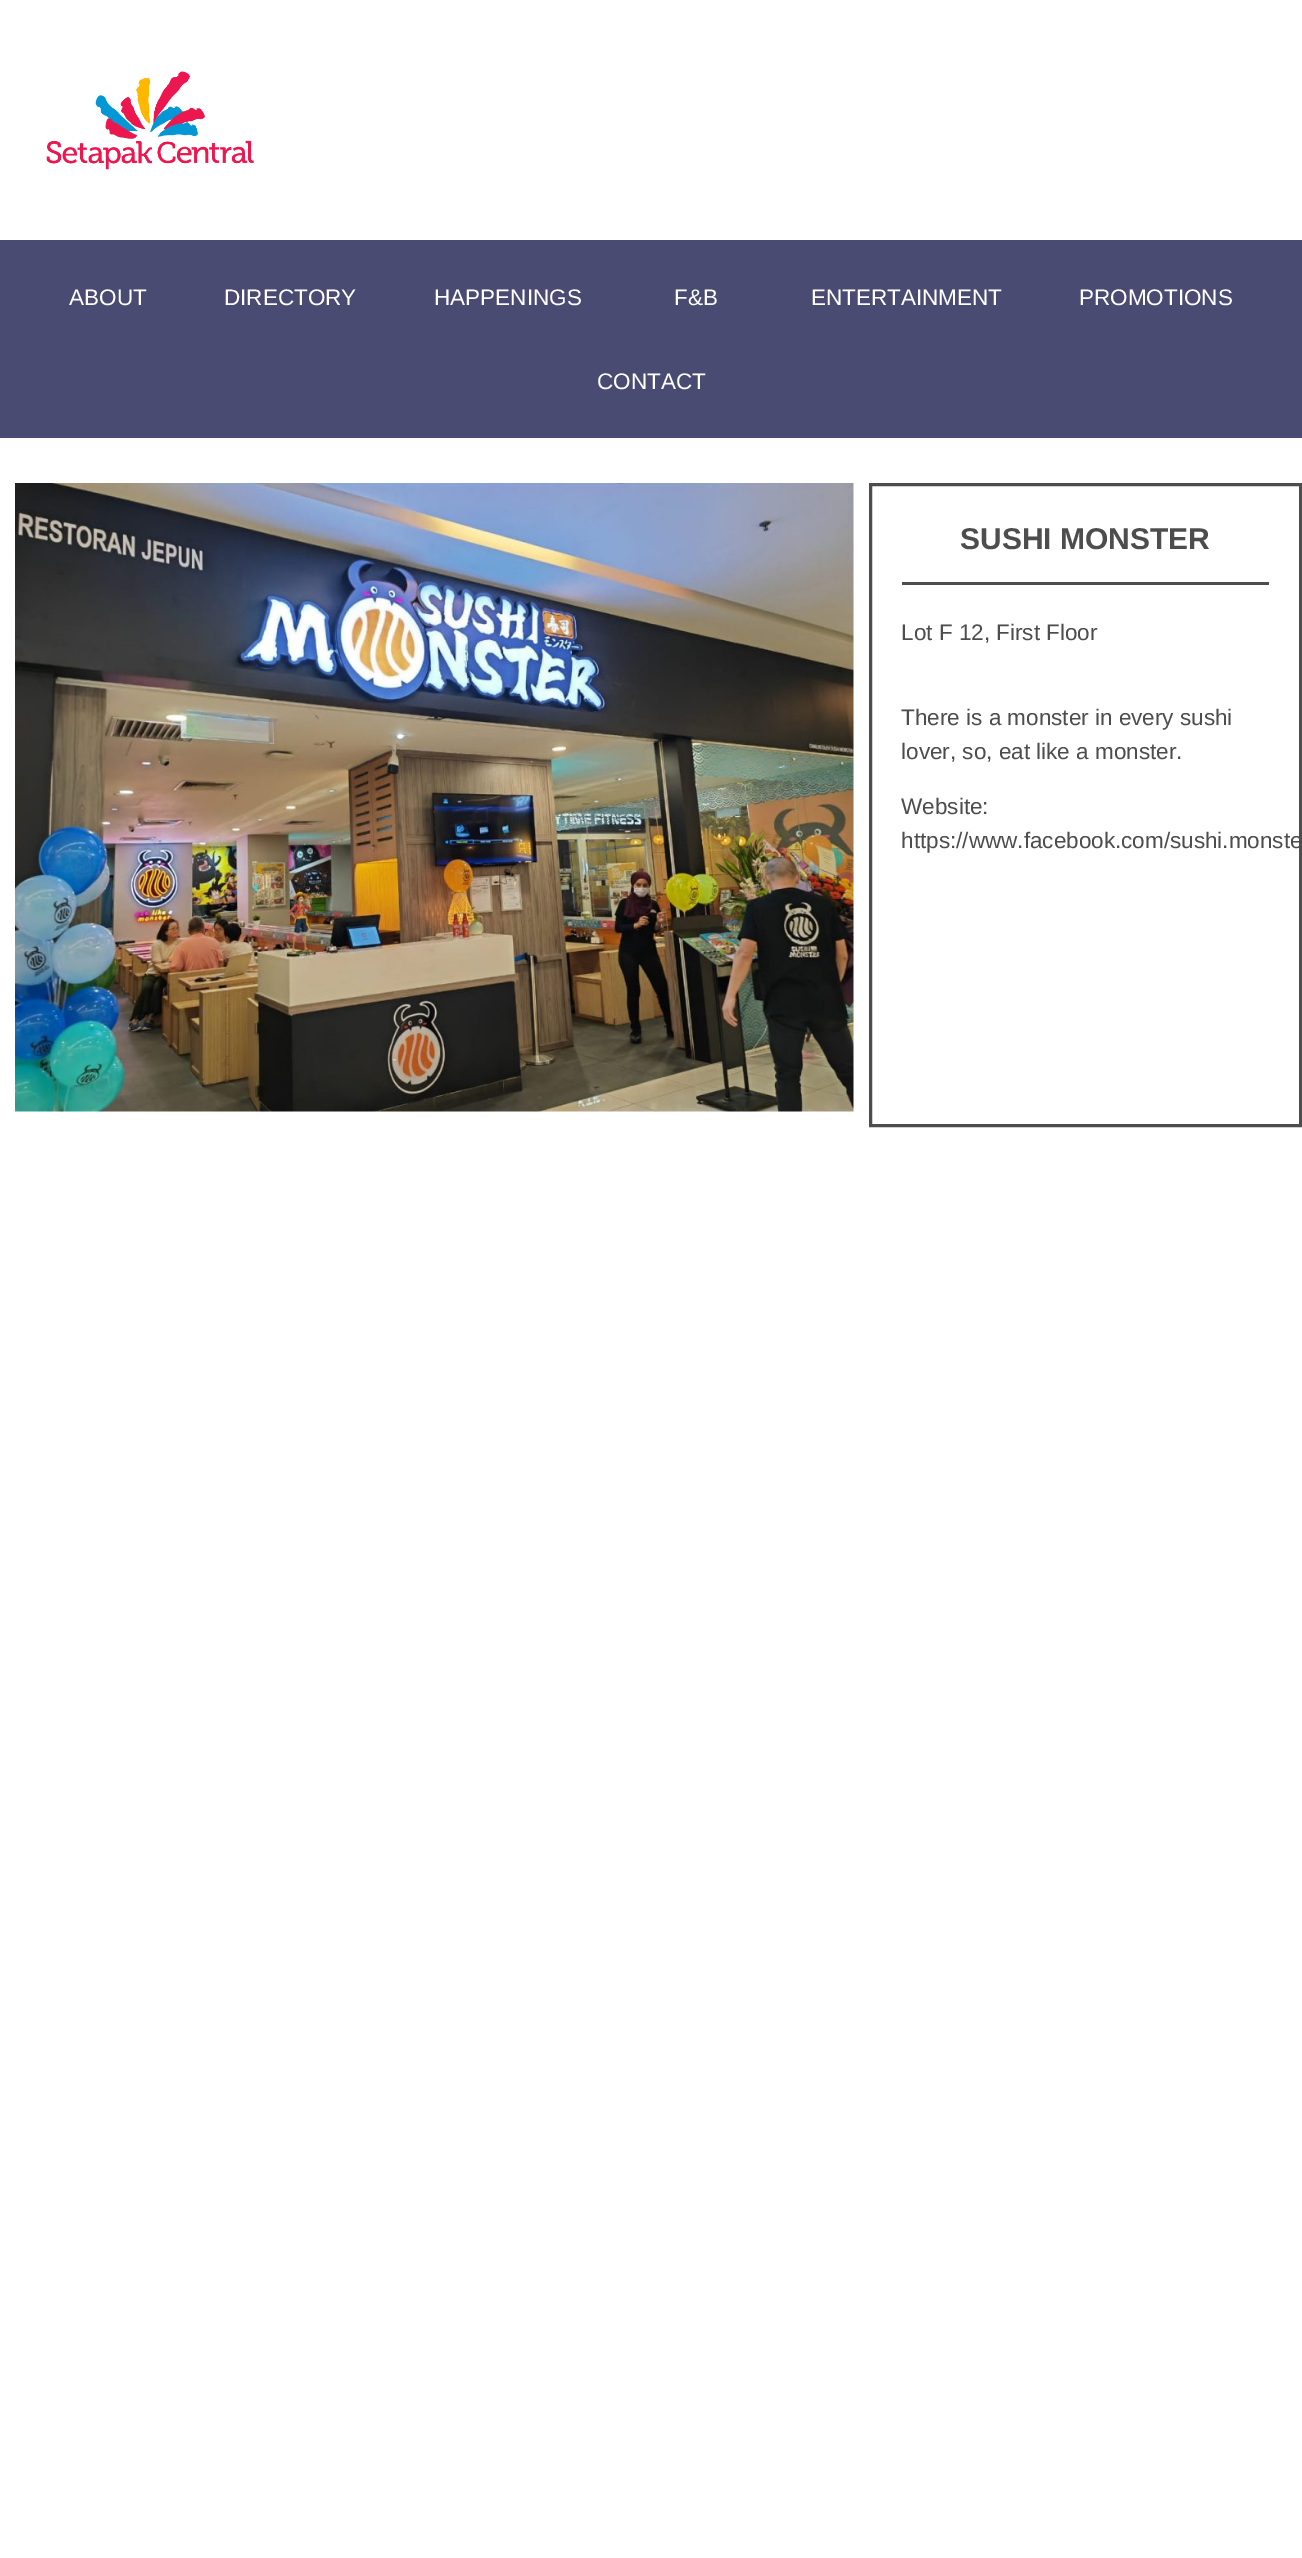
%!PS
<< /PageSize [1302 2558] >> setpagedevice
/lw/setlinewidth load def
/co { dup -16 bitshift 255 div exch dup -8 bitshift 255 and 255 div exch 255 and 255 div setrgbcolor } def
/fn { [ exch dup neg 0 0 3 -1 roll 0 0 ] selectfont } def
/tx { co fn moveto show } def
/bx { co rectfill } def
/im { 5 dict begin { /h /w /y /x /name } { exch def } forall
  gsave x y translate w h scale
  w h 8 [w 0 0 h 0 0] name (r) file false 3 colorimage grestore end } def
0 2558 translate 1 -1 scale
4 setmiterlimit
0 0 1302 2558 16#FFFFFF bx
(media/1.raw) 46 71 208 99 im
0 240 1302 198 16#4A4B72 bx
(media/2.raw) 15 483 839 629 im
16#4D4D4D co
3 lw
870.5 484.5 430 641 rectstroke
902 582 367 3 16#4D4D4D bx
(ABOUT) 69 305 /LiberationSans-Regular 22.5 16#FFFFFF tx
(DIRECTORY) 224 305 /LiberationSans-Regular 22.5 16#FFFFFF tx
(HAPPENINGS) 434 305 /LiberationSans-Regular 22.5 16#FFFFFF tx
(F&B) 674 305 /LiberationSans-Regular 22.5 16#FFFFFF tx
(ENTERTAINMENT) 811 305 /LiberationSans-Regular 22.5 16#FFFFFF tx
(PROMOTIONS) 1079 305 /LiberationSans-Regular 22.5 16#FFFFFF tx
(CONTACT) 597 389 /LiberationSans-Regular 22.5 16#FFFFFF tx
(SUSHI MONSTER) 960 549 /LiberationSans-Bold 30 16#4D4D4D tx
(Lot F 12, First Floor) 901 640 /LiberationSans-Regular 22.5 16#4D4D4D tx
(There is a monster in every sushi) 901 725 /LiberationSans-Regular 22.5 16#4D4D4D tx
(lover, so, eat like a monster.) 901 759 /LiberationSans-Regular 22.5 16#4D4D4D tx
(Website:) 901 814 /LiberationSans-Regular 22.5 16#4D4D4D tx
(https://www.facebook.com/sushi.monste) 901 848 /LiberationSans-Regular 22.5 16#4D4D4D tx
showpage
